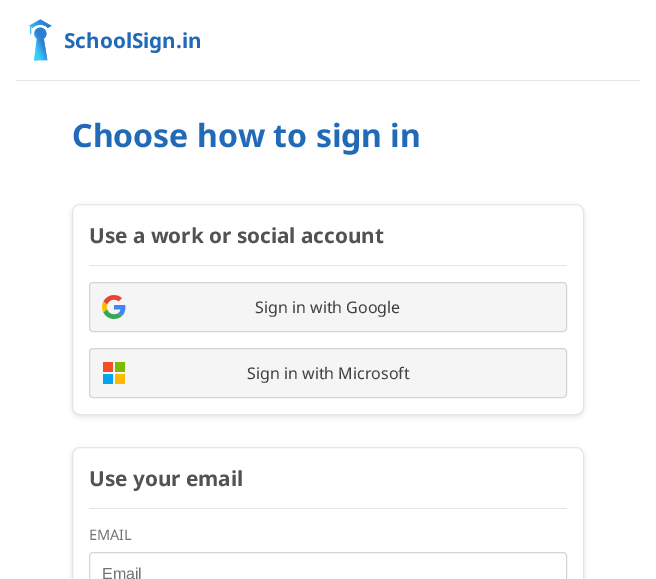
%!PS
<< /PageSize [656 579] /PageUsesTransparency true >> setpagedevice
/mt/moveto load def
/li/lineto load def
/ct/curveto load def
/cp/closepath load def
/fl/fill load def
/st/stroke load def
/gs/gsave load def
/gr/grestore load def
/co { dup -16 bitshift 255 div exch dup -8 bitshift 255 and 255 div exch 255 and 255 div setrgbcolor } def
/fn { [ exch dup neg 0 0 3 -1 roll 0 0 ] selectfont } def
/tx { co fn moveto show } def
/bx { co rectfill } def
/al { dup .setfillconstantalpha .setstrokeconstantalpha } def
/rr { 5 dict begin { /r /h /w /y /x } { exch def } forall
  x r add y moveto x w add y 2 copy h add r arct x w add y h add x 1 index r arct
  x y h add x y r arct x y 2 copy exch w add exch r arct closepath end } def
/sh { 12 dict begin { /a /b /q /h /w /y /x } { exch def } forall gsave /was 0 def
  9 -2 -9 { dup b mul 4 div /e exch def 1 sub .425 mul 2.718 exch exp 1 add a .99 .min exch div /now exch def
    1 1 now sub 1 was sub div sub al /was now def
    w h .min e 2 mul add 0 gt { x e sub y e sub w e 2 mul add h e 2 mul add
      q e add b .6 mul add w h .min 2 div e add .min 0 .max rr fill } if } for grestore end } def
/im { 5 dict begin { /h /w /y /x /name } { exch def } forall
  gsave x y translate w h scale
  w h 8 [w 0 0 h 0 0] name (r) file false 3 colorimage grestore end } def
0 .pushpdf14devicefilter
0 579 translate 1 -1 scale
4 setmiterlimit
0 0 656 579 16#FFFFFF bx
16 80 624 1 16#E5E5E5 bx
(media/1.raw) 28 18 24 43 im
gs
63 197 mt 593 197 li 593 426 li 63 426 li cp 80 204 mt 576 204 li 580.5 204 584 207.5 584 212 ct 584 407 li 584 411.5 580.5 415 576 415 ct 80 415 li 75.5 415 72 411.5 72 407 ct 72 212 li 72 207.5 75.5 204 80 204 ct cp eoclip newpath
16#000000 co
72 206 512 211 8 2.5 .1 sh
gr
72.5 204.5 511 210 7.5 rr st
89 265 478 1 16#E5E5E5 bx
16#F5F5F5 co
89.5 282.5 477 49 3.5 rr gs fl gr
16#D4D4D4 co
st
(media/2.raw) 102 295 24 24 im
16#F5F5F5 co
89.5 348.5 477 49 3.5 rr gs fl gr
16#D4D4D4 co
st
103 362 10 10 16#F25022 bx
103 374 10 10 16#00A4EF bx
115 362 10 10 16#7FBA00 bx
115 374 10 10 16#FFB900 bx
gs
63 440 mt 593 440 li 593 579 li 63 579 li cp 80 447 mt 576 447 li 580.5 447 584 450.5 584 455 ct 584 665 li 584 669.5 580.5 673 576 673 ct 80 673 li 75.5 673 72 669.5 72 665 ct 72 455 li 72 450.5 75.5 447 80 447 ct cp eoclip newpath
16#000000 co
72 449 512 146 8 2.5 .1 sh
gr
16#E5E5E5 co
72.5 447.5 511 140 7.5 rr st
89 508 478 1 16#E5E5E5 bx
16#D4D4D4 co
89.5 552.5 477 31 3.5 rr st
(SchoolSign.in) 64 48 /NotoSans-Bold 20.75 16#206AB8 tx
(Choose how to sign in) 72 147 /NotoSans-Bold 32 16#206AB8 tx
(Use a work or social account) 89 243 /NotoSans-Bold 20.75 16#525252 tx
(Sign in with Google) 255 313 /NotoSans-Regular 16 16#404040 tx
(Sign in with Microsoft) 247 379 /NotoSans-Regular 16 16#404040 tx
(Use your email) 89 486 /NotoSans-Bold 20.75 16#525252 tx
(EMAIL) 89 540 /NotoSans-Regular 14.5 16#737373 tx
(Email) 102 579 /LiberationSans-Regular 16 16#737373 tx
.poppdf14devicefilter showpage
